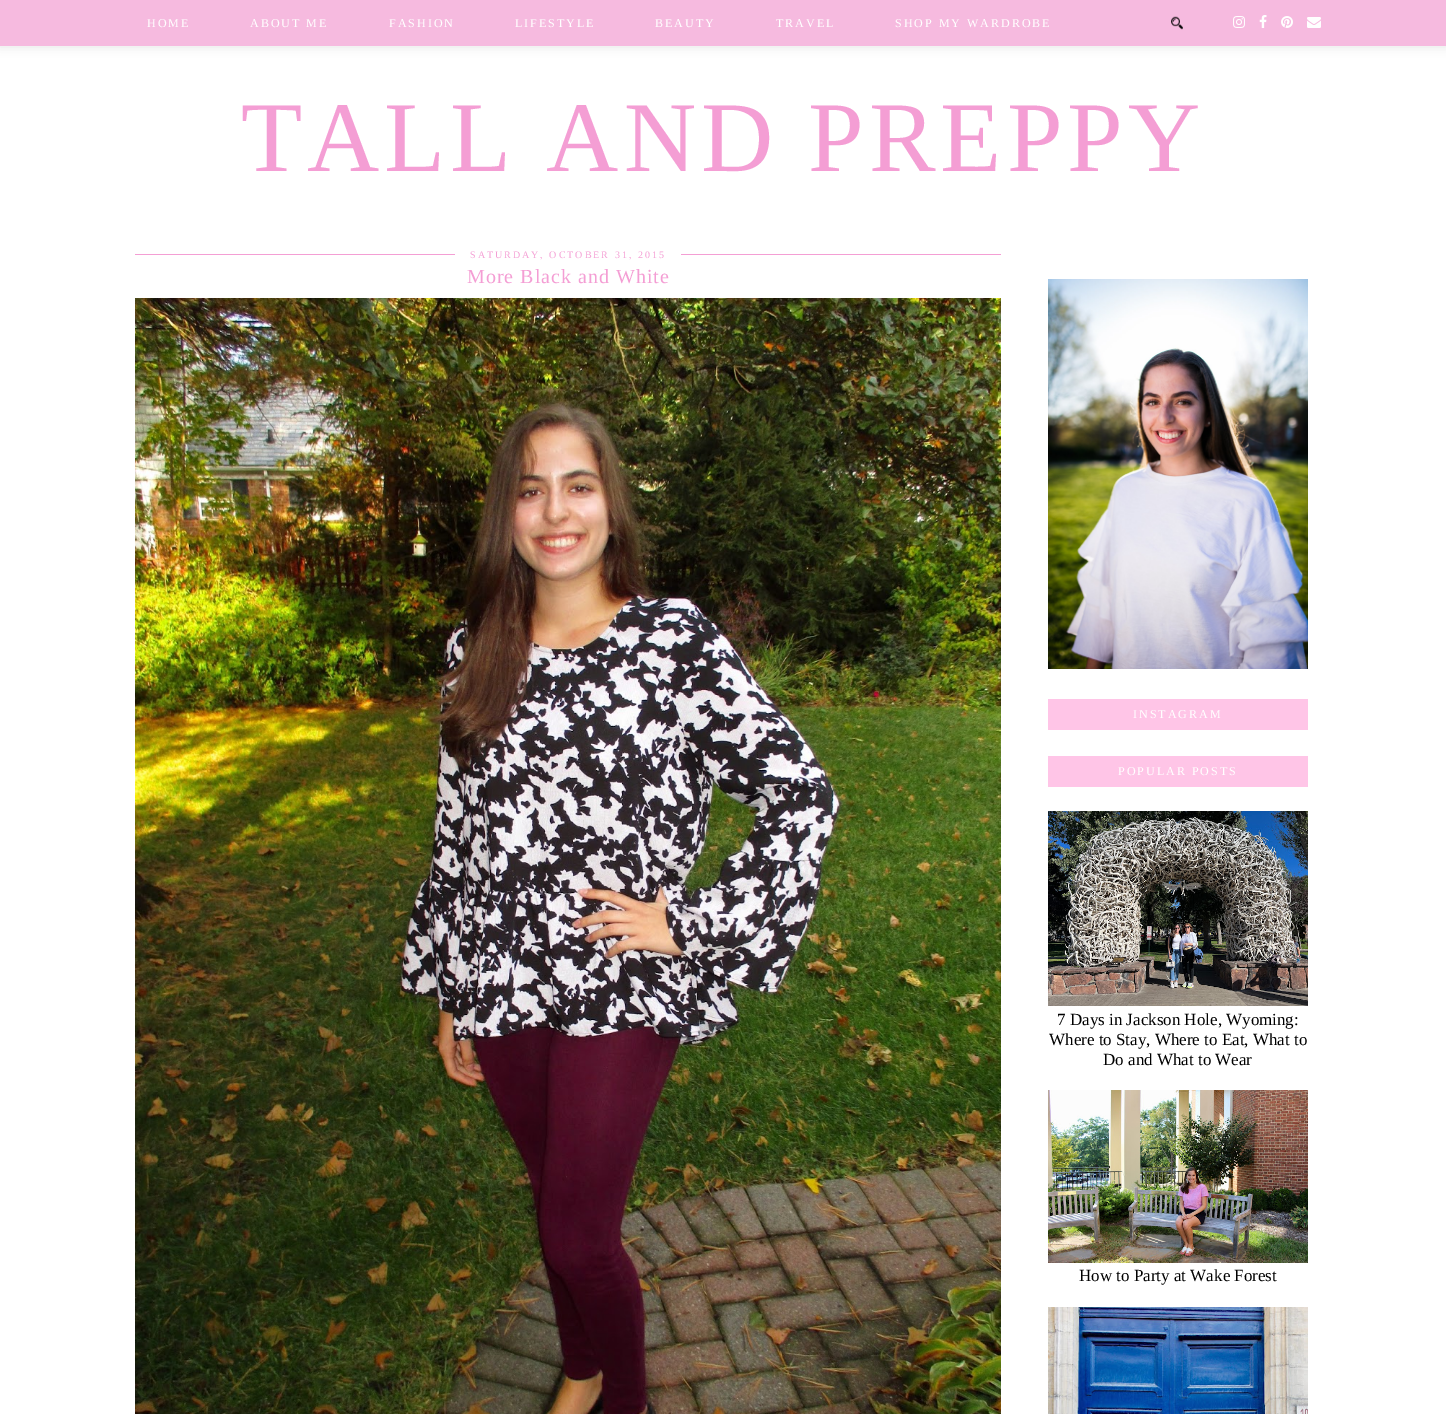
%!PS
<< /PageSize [1446 1414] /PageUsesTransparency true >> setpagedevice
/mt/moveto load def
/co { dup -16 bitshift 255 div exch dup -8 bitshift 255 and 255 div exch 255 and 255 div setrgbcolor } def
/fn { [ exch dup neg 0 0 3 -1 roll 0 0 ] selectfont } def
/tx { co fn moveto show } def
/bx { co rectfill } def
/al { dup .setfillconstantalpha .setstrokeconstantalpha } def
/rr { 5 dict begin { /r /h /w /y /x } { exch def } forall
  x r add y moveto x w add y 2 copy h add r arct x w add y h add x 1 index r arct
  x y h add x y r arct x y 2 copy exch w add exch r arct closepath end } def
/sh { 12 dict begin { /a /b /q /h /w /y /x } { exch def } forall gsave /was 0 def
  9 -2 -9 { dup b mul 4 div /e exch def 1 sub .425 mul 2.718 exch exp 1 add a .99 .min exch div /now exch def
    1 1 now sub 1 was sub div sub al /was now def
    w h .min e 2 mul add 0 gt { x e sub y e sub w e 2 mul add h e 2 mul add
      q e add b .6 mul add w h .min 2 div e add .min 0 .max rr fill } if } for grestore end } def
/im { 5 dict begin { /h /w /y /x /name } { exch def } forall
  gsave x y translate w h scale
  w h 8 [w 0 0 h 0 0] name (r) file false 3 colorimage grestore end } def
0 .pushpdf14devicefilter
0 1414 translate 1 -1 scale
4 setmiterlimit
0 0 1446 1414 16#FFFFFF bx
16#000000 co
0 1 1446 46 0 5 .1 sh
0 0 1446 46 16#F6BADF bx
(media/1.raw) 1171 16 12 14 im
(media/2.raw) 1233 16 12 12 im
(media/3.raw) 1259 15 8 13 im
(media/4.raw) 1281 16 12 12 im
(media/5.raw) 1307 17 14 11 im
135 254 866 1 16#F49ED4 bx
455 254 226 1 16#FFFFFF bx
(media/6.raw) 135 298 866 1116 im
(media/7.raw) 1048 279 260 390 im
1048 699 260 31 16#FFC5E7 bx
1048 756 260 31 16#FFC5E7 bx
(media/8.raw) 1048 811 260 195 im
(media/9.raw) 1048 1090 260 173 im
(media/10.raw) 1048 1307 260 107 im
/LiberationSerif-Regular 12 fn
16#FFFFFF co
147 27 mt 2 0 (HOME) ashow
250 27 mt 2 0 (ABOUT ME) ashow
389 27 mt 2 0 (FASHION) ashow
515 27 mt 2 0 (LIFESTYLE) ashow
655 27 mt 2 0 (BEAUTY) ashow
776 27 mt 2 0 (TRAVEL) ashow
895 27 mt 2 0 (SHOP MY WARDROBE) ashow
/LiberationSerif-Regular 100 fn
16#F49ED4 co
241 171 mt 5 0 (TALL AND PREPPY) ashow
/LiberationSerif-Regular 10 fn
470 258 mt 2 0 (SATURDAY, OCTOBER 31, 2015) ashow
/LiberationSerif-Regular 20 fn
467 283 mt 1 0 (More Black and White) ashow
/LiberationSerif-Regular 12 fn
16#FFFFFF co
1133 718 mt 2 0 (INSTAGRAM) ashow
1118 775 mt 2 0 (POPULAR POSTS) ashow
(7 Days in Jackson Hole, Wyoming:) 1057 1025 /LiberationSerif-Regular 17 16#000000 tx
(Where to Stay, Where to Eat, What to) 1049 1045 /LiberationSerif-Regular 17 16#000000 tx
(Do and What to Wear) 1103 1065 /LiberationSerif-Regular 17 16#000000 tx
(How to Party at Wake Forest) 1079 1281 /LiberationSerif-Regular 17 16#000000 tx
.poppdf14devicefilter showpage
